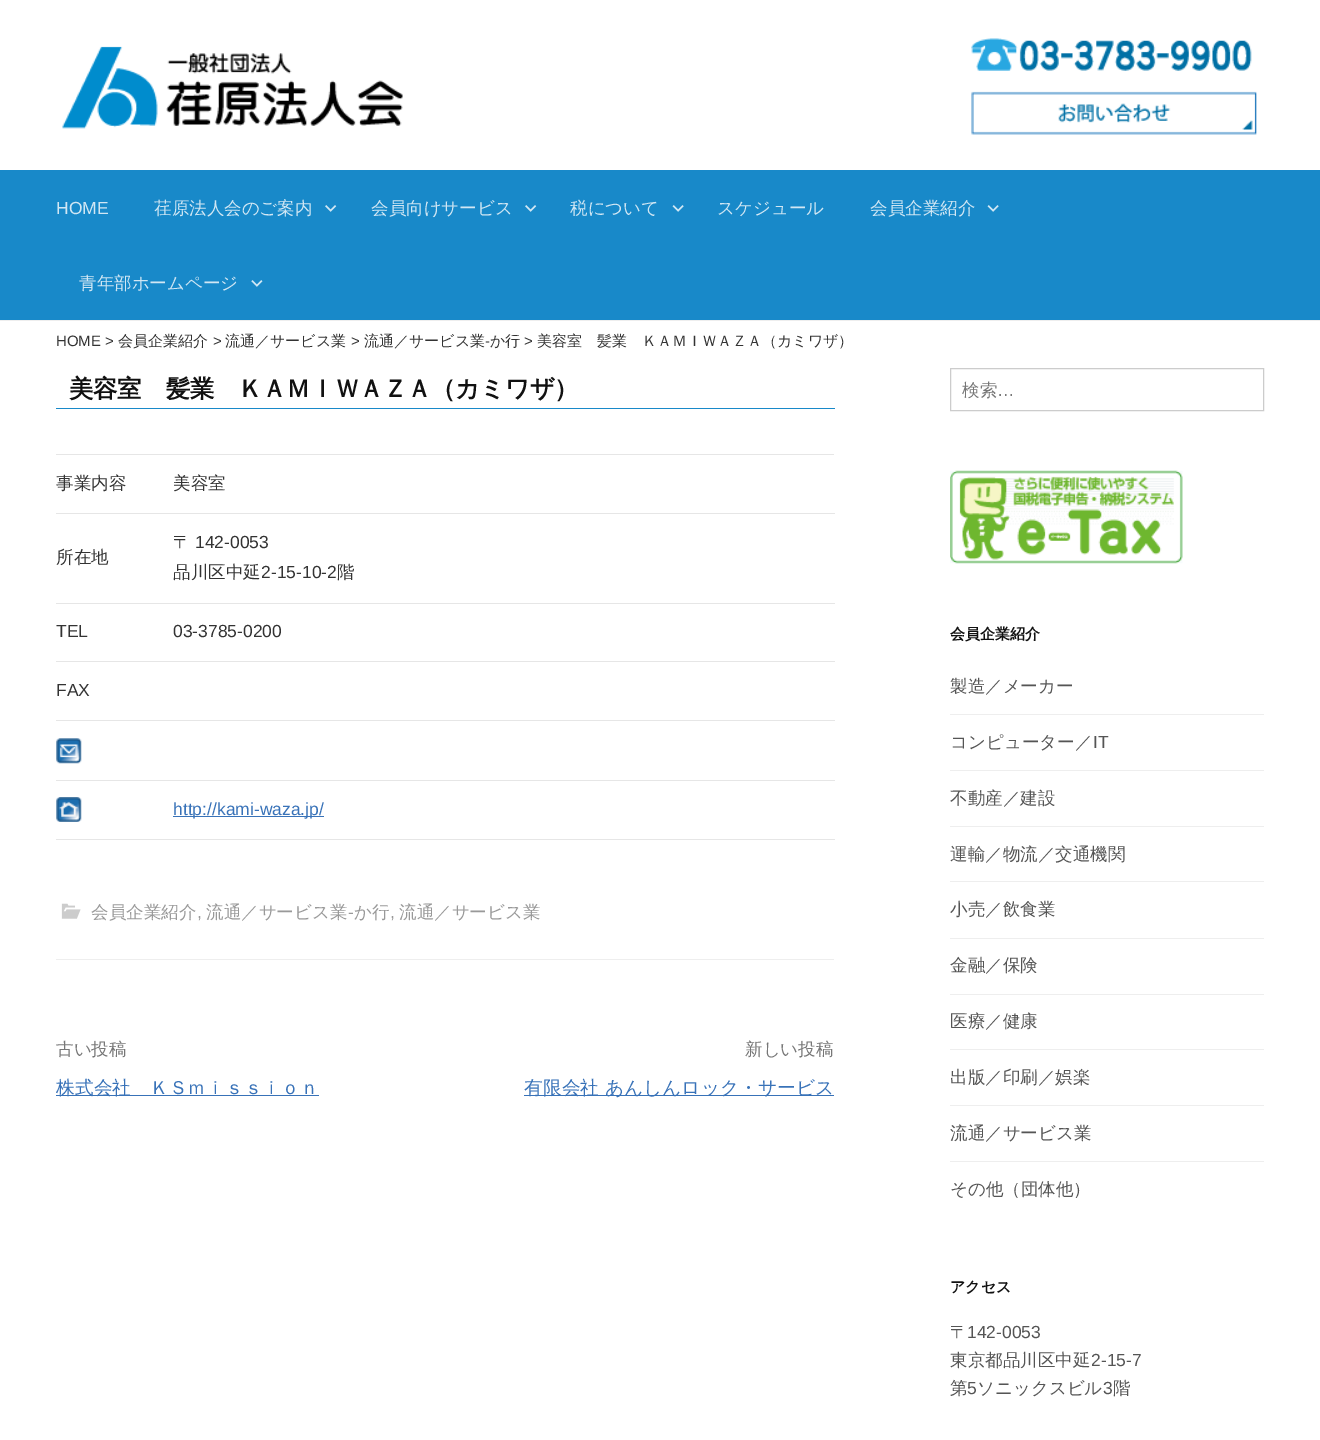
%!PS
<< /PageSize [1320 1440] >> setpagedevice
/mt/moveto load def
/co { dup -16 bitshift 255 div exch dup -8 bitshift 255 and 255 div exch 255 and 255 div setrgbcolor } def
/fn { [ exch dup neg 0 0 3 -1 roll 0 0 ] selectfont } def
/tx { co fn moveto show } def
/bx { co rectfill } def
/im { 5 dict begin { /h /w /y /x /name } { exch def } forall
  gsave x y translate w h scale
  w h 8 [w 0 0 h 0 0] name (r) file false 3 colorimage grestore end } def
0 1440 translate 1 -1 scale
4 setmiterlimit
0 0 1320 1440 16#FFFFFF bx
0 320 1320 1 16#EEEEEE bx
(media/1.raw) 62 46 341 83 im
(media/2.raw) 971 38 281 33 im
(media/3.raw) 971 91 286 44 im
0 170 1320 150 16#1889C9 bx
(media/4.raw) 325 205 12 7 im
(media/4.raw) 525 205 12 7 im
(media/5.raw) 672 205 12 7 im
(media/5.raw) 987 205 12 7 im
(media/6.raw) 251 280 12 7 im
56 959 778 1 16#EEEEEE bx
56 408 779 1 16#1889C9 bx
56 454 778 1 16#E6E6E6 bx
56 513 779 1 16#E6E6E6 bx
56 603 779 1 16#E6E6E6 bx
56 661 779 1 16#E6E6E6 bx
56 720 779 1 16#E6E6E6 bx
(media/7.raw) 56 738 26 26 im
56 780 779 1 16#E6E6E6 bx
(media/8.raw) 56 797 26 25 im
56 839 779 1 16#E6E6E6 bx
173 816 151 1 16#3872B8 bx
(media/9.raw) 61 903 20 16 im
56 1095 263 1 16#3872B8 bx
524 1095 310 1 16#3872B8 bx
16#CCCCCC co
950.5 368.5 313 42 rectstroke
(media/10.raw) 950 470 233 94 im
950 714 314 1 16#EEEEEE bx
950 770 314 1 16#EEEEEE bx
950 826 314 1 16#EEEEEE bx
950 881 314 1 16#EEEEEE bx
950 938 314 1 16#EEEEEE bx
950 994 314 1 16#EEEEEE bx
950 1049 314 1 16#EEEEEE bx
950 1105 314 1 16#EEEEEE bx
950 1161 314 1 16#EEEEEE bx
(HOME) 56 214 /LiberationSans-Regular 17.5 16#D1E7F4 tx
(荏原法人会のご案内) 154 214 /WenQuanYiZenHei-Medium 17.5 16#D1E7F4 tx
(会員向けサービス) 371 214 /WenQuanYiZenHei-Medium 17.5 16#D1E7F4 tx
(税について) 570 214 /WenQuanYiZenHei-Medium 17.5 16#D1E7F4 tx
(スケジュール) 717 214 /WenQuanYiZenHei-Medium 17.5 16#D1E7F4 tx
(会員企業紹介) 870 214 /WenQuanYiZenHei-Medium 17.5 16#D1E7F4 tx
(青年部ホームページ) 79 289 /WenQuanYiZenHei-Medium 17.5 16#D1E7F4 tx
(HOME >) 56 346 /LiberationSans-Regular 15 16#333333 tx
(会員企業紹介) 118 346 /WenQuanYiZenHei-Medium 15 16#333333 tx
(>) 213 346 /LiberationSans-Regular 15 16#333333 tx
(流通／サービス業) 225 346 /WenQuanYiZenHei-Medium 15 16#333333 tx
(>) 351 346 /LiberationSans-Regular 15 16#333333 tx
(流通／サービス業) 364 346 /WenQuanYiZenHei-Medium 15 16#333333 tx
(-) 485 346 /LiberationSans-Regular 15 16#333333 tx
(か行) 490 346 /WenQuanYiZenHei-Medium 15 16#333333 tx
(>) 524 346 /LiberationSans-Regular 15 16#333333 tx
(美容室　髪業　ＫＡＭＩＷＡＺＡ（カミワザ）) 537 346 /WenQuanYiZenHei-Medium 15 16#333333 tx
/WenQuanYiZenHei-Bold 24.4 fn
16#111111 co
69 397 mt -.25 0 (美容室　髪業　ＫＡＭＩＷＡＺＡ（カミワザ）) ashow
(事業内容) 56 489 /WenQuanYiZenHei-Medium 17.5 16#333333 tx
(美容室) 173 489 /WenQuanYiZenHei-Medium 17.5 16#333333 tx
(所在地) 56 563 /WenQuanYiZenHei-Medium 17.5 16#333333 tx
(〒) 173 548 /WenQuanYiZenHei-Medium 17.5 16#333333 tx
(142-0053) 195 548 /LiberationSans-Regular 17.5 16#333333 tx
(品川区中延) 173 578 /WenQuanYiZenHei-Medium 17.5 16#333333 tx
(2-15-10-2) 261 578 /LiberationSans-Regular 17.5 16#333333 tx
(階) 337 578 /WenQuanYiZenHei-Medium 17.5 16#333333 tx
(TEL) 56 637 /LiberationSans-Regular 17.5 16#333333 tx
(03-3785-0200) 173 637 /LiberationSans-Regular 17.5 16#333333 tx
(FAX) 56 696 /LiberationSans-Regular 17.5 16#333333 tx
(http://kami-waza.jp/) 173 815 /LiberationSans-Regular 17.5 16#3872B8 tx
(会員企業紹介) 91 918 /WenQuanYiZenHei-Medium 17.5 16#999999 tx
(流通／サービス業) 206 918 /WenQuanYiZenHei-Medium 17.5 16#999999 tx
(-) 348 918 /LiberationSans-Regular 17.5 16#999999 tx
(か行) 354 918 /WenQuanYiZenHei-Medium 17.5 16#999999 tx
(流通／サービス業) 399 918 /WenQuanYiZenHei-Medium 17.5 16#999999 tx
(,) 197 918 /LiberationSans-Regular 17.5 16#999999 tx
(,) 390 918 /LiberationSans-Regular 17.5 16#999999 tx
(古い投稿) 56 1055 /WenQuanYiZenHei-Medium 17.5 16#777777 tx
(株式会社　ＫＳｍｉｓｓｉｏｎ) 56 1094 /WenQuanYiZenHei-Medium 18.75 16#3872B8 tx
(新しい投稿) 745 1055 /WenQuanYiZenHei-Medium 17.5 16#777777 tx
(有限会社 あんしんロック・サービス) 524 1094 /WenQuanYiZenHei-Medium 18.75 16#3872B8 tx
(検索) 962 396 /WenQuanYiZenHei-Medium 17.5 16#777777 tx
(…) 997 396 /LiberationSans-Regular 17.5 16#777777 tx
(会員企業紹介) 950 639 /WenQuanYiZenHei-Bold 15 16#111111 tx
(製造／メーカー) 950 692 /WenQuanYiZenHei-Medium 17.5 16#555555 tx
(コンピューター／) 950 748 /WenQuanYiZenHei-Medium 17.5 16#555555 tx
(IT) 1093 748 /LiberationSans-Regular 17.5 16#555555 tx
(不動産／建設) 950 804 /WenQuanYiZenHei-Medium 17.5 16#555555 tx
(運輸／物流／交通機関) 950 860 /WenQuanYiZenHei-Medium 17.5 16#555555 tx
(小売／飲食業) 950 915 /WenQuanYiZenHei-Medium 17.5 16#555555 tx
(金融／保険) 950 971 /WenQuanYiZenHei-Medium 17.5 16#555555 tx
(医療／健康) 950 1027 /WenQuanYiZenHei-Medium 17.5 16#555555 tx
(出版／印刷／娯楽) 950 1083 /WenQuanYiZenHei-Medium 17.5 16#555555 tx
(流通／サービス業) 950 1139 /WenQuanYiZenHei-Medium 17.5 16#555555 tx
(その他（団体他）) 950 1195 /WenQuanYiZenHei-Medium 17.5 16#555555 tx
(アクセス) 950 1292 /WenQuanYiZenHei-Bold 15 16#111111 tx
(〒) 950 1338 /WenQuanYiZenHei-Medium 17.5 16#555555 tx
(142-0053) 967 1338 /LiberationSans-Regular 17.5 16#555555 tx
(東京都品川区中延) 950 1366 /WenQuanYiZenHei-Medium 17.5 16#555555 tx
(2-15-7) 1091 1366 /LiberationSans-Regular 17.5 16#555555 tx
(第) 950 1394 /WenQuanYiZenHei-Medium 17.5 16#555555 tx
(5) 967 1394 /LiberationSans-Regular 17.5 16#555555 tx
(ソニックスビル) 977 1394 /WenQuanYiZenHei-Medium 17.5 16#555555 tx
(3) 1103 1394 /LiberationSans-Regular 17.5 16#555555 tx
(階) 1113 1394 /WenQuanYiZenHei-Medium 17.5 16#555555 tx
showpage
